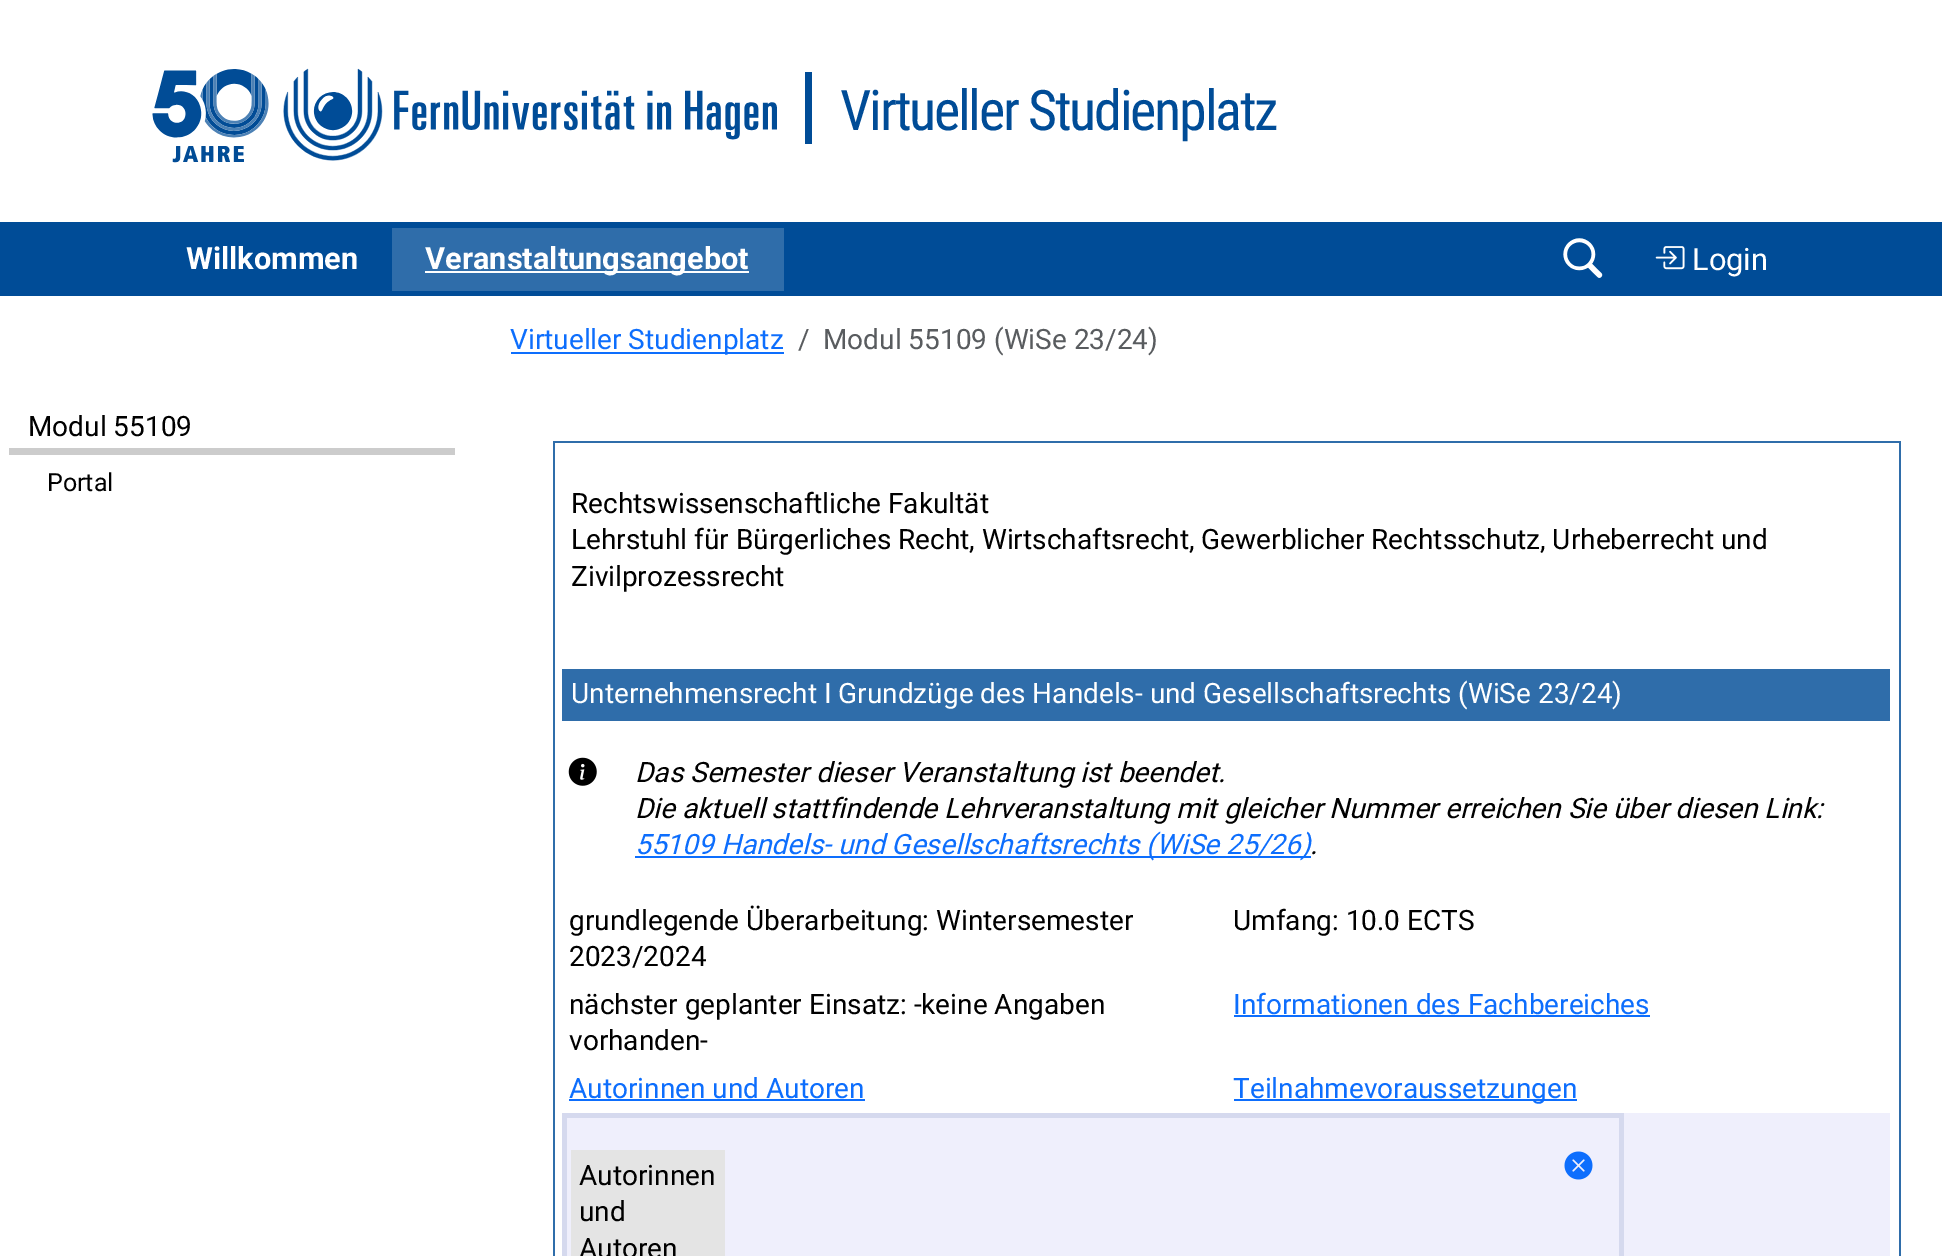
%!PS
<< /PageSize [1942 1256] >> setpagedevice
/mt/moveto load def
/co { dup -16 bitshift 255 div exch dup -8 bitshift 255 and 255 div exch 255 and 255 div setrgbcolor } def
/fn { [ exch dup neg 0 0 3 -1 roll 0 0 ] selectfont } def
/tx { co fn moveto show } def
/bx { co rectfill } def
/im { 5 dict begin { /h /w /y /x /name } { exch def } forall
  gsave x y translate w h scale
  w h 8 [w 0 0 h 0 0] name (r) file false 3 colorimage grestore end } def
0 1256 translate 1 -1 scale
4 setmiterlimit
0 0 1942 1256 16#FFFFFF bx
(media/1.raw) 152 68 625 95 im
805 72 7 72 16#004C97 bx
0 222 1942 74 16#004C97 bx
392 228 392 63 16#2F6DAA bx
425 271 324 2 16#FFFFFF bx
(media/2.raw) 1563 238 40 40 im
(media/3.raw) 1655 246 30 24 im
9 448 446 7 16#CCCCCC bx
511 352 273 2 16#0D6EFD bx
553 441 1348 2 16#2F6DAA bx
1899 441 2 815 16#2F6DAA bx
553 441 2 815 16#2F6DAA bx
567 1113 1323 143 16#EFEFFC bx
562 669 1328 52 16#2F6DAA bx
(media/4.raw) 568 757 29 29 im
635 856 676 2 16#0D6EFD bx
1234 1015 416 2 16#0D6EFD bx
569 1099 296 2 16#0D6EFD bx
1234 1099 343 2 16#0D6EFD bx
562 1113 1062 5 16#D5D9EE bx
1619 1113 5 143 16#D5D9EE bx
562 1113 5 143 16#D5D9EE bx
571 1150 154 106 16#E4E4E4 bx
(media/5.raw) 1564 1151 29 29 im
/RobotoCondensed-Regular 56 fn
16#004C97 co
840 130 mt -2.25 0 (Virtueller Studienplatz) ashow
(Willkommen) 186 269 /Roboto-Bold 30.75 16#FFFFFF tx
(Veranstaltungsangebot) 425 269 /Roboto-Bold 30.75 16#FFFFFF tx
(Login) 1692 270 /Roboto-Regular 30.75 16#FFFFFF tx
(Modul 55109) 28 436 /Roboto-Regular 28 16#000000 tx
(Portal) 47 491 /Roboto-Regular 25 16#000000 tx
(Virtueller Studienplatz) 510 349 /Roboto-Regular 28 16#0D6EFD tx
(/) 798 349 /Roboto-Regular 28 16#595C5F tx
(Modul 55109 \(WiSe 23/24\)) 823 349 /Roboto-Regular 28 16#595C5F tx
(Rechtswissenschaftliche Fakultät) 571 513 /Roboto-Regular 28 16#000000 tx
(Lehrstuhl für Bürgerliches Recht, Wirtschaftsrecht, Gewerblicher Rechtsschutz, Urheberrecht und) 571 549 /Roboto-Regular 28 16#000000 tx
(Zivilprozessrecht) 571 586 /Roboto-Regular 28 16#000000 tx
(Unternehmensrecht I Grundzüge des Handels- und Gesellschaftsrechts \(WiSe 23/24\)) 571 703 /Roboto-Regular 28 16#FFFFFF tx
(Das Semester dieser Veranstaltung ist beendet.) 635 782 /Roboto-Italic 28 16#000000 tx
(Die aktuell stattfindende Lehrveranstaltung mit gleicher Nummer erreichen Sie über diesen Link:) 635 818 /Roboto-Italic 28 16#000000 tx
(55109 Handels- und Gesellschaftsrechts \(WiSe 25/26\)) 635 854 /Roboto-Italic 28 16#0D6EFD tx
(.) 1310 854 /Roboto-Italic 28 16#000000 tx
(grundlegende Überarbeitung: Wintersemester) 569 930 /Roboto-Regular 28 16#000000 tx
(2023/2024) 569 966 /Roboto-Regular 28 16#000000 tx
(Umfang: 10.0 ECTS) 1233 930 /Roboto-Regular 28 16#000000 tx
(nächster geplanter Einsatz: -keine Angaben) 569 1014 /Roboto-Regular 28 16#000000 tx
(vorhanden-) 569 1050 /Roboto-Regular 28 16#000000 tx
(Informationen des Fachbereiches) 1233 1014 /Roboto-Regular 28 16#0D6EFD tx
(Autorinnen und Autoren) 569 1098 /Roboto-Regular 28 16#0D6EFD tx
(Teilnahmevoraussetzungen) 1233 1098 /Roboto-Regular 28 16#0D6EFD tx
(Autorinnen) 579 1185 /Roboto-Regular 28 16#000000 tx
(und) 579 1221 /Roboto-Regular 28 16#000000 tx
(Autoren) 579 1258 /Roboto-Regular 28 16#000000 tx
showpage
